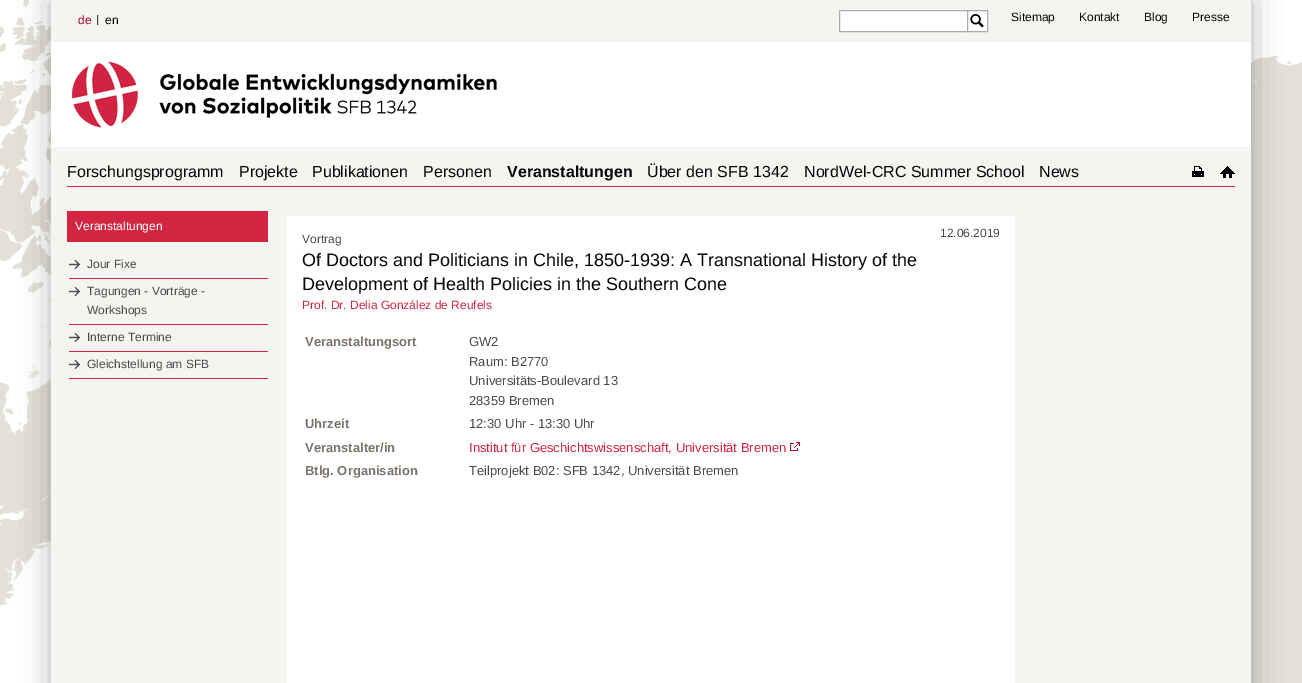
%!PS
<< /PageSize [1302 683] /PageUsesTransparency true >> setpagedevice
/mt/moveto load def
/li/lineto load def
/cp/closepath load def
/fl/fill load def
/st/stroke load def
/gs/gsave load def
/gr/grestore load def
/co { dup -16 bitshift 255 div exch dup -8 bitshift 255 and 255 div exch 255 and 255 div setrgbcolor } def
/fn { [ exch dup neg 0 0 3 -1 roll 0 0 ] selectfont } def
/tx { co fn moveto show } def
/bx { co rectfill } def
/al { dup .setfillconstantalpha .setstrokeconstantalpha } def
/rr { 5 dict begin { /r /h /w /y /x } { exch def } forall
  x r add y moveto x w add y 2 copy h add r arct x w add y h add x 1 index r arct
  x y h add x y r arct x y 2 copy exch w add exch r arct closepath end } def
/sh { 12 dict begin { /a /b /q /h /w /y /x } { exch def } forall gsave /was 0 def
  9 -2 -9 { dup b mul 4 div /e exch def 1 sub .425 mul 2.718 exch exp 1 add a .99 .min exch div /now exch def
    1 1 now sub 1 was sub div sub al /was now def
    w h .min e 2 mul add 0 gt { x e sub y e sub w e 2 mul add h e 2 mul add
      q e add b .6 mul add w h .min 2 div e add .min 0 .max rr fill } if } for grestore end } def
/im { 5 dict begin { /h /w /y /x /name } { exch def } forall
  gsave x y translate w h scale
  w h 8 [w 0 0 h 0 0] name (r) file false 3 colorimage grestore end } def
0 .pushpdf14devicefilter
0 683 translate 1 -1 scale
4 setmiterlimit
0 0 1302 683 16#FFFFFF bx
(media/1.raw) 0 0 1302 683 im
16#000000 co
51 0 1200 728 0 15 .3 sh
51 0 1200 683 16#F4F4F1 bx
(media/2.raw) 97 15 2 10 im
16#FFFFFF co
839.5 10.5 mt 967.5 10.5 li 967.5 31.5 li 839.5 31.5 li cp gs fl gr
16#AAAAAA co
st
968 11 19 20 16#FFFFFF bx
(media/3.raw) 970 14 14 14 im
16#AAAAAA co
967.5 10.5 20 21 rectstroke
51 42 1200 105 16#FFFFFF bx
(media/4.raw) 71 61 426 67 im
67 186 1168 1 16#D12541 bx
(media/5.raw) 1192 166 12 11 im
(media/6.raw) 1220 166 15 12 im
67 211 201 31 16#D12541 bx
69 278 199 1 16#D12541 bx
(media/7.raw) 69 260 11 9 im
69 324 199 1 16#D12541 bx
(media/7.raw) 69 287 11 9 im
69 351 199 1 16#D12541 bx
(media/7.raw) 69 333 11 9 im
69 378 199 1 16#D12541 bx
(media/7.raw) 69 360 11 9 im
287 216 728 467 16#FFFFFF bx
(media/8.raw) 790 442 10 9 im
(de) 78 24 /LiberationSans-Regular 12 16#BA002C tx
(en) 105 24 /LiberationSans-Regular 12 16#050505 tx
(Sitemap) 1011 21 /LiberationSans-Regular 12 16#050505 tx
(Kontakt) 1079 21 /LiberationSans-Regular 12 16#050505 tx
(Blog) 1144 21 /LiberationSans-Regular 12 16#050505 tx
(Presse) 1192 21 /LiberationSans-Regular 12 16#050505 tx
(Forschungsprogramm) 67 177 /LiberationSans-Regular 16 16#050505 tx
(Projekte) 239 177 /LiberationSans-Regular 16 16#050505 tx
(Publikationen) 312 177 /LiberationSans-Regular 16 16#050505 tx
(Personen) 423 177 /LiberationSans-Regular 16 16#050505 tx
(Veranstaltungen) 507 177 /LiberationSans-Bold 16 16#050505 tx
(Über den SFB 1342) 647 177 /LiberationSans-Regular 16 16#050505 tx
(NordWel-CRC Summer School) 804 177 /LiberationSans-Regular 16 16#050505 tx
(News) 1039 177 /LiberationSans-Regular 16 16#050505 tx
(Veranstaltungen) 75 230 /LiberationSans-Regular 12 16#FFFFFF tx
(Jour Fixe) 87 268 /LiberationSans-Regular 12 16#4A4A4A tx
(Tagungen - Vorträge -) 87 295 /LiberationSans-Regular 12 16#4A4A4A tx
(Workshops) 87 314 /LiberationSans-Regular 12 16#4A4A4A tx
(Interne Termine) 87 341 /LiberationSans-Regular 12 16#4A4A4A tx
(Gleichstellung am SFB) 87 368 /LiberationSans-Regular 12 16#4A4A4A tx
(12.06.2019) 940 237 /LiberationSans-Regular 12 16#4A4A4A tx
(Vortrag) 302 243 /LiberationSans-Regular 12 16#4A4A4A tx
(Of Doctors and Politicians in Chile, 1850-1939: A Transnational History of the) 302 266 /LiberationSans-Regular 18 16#050505 tx
(Development of Health Policies in the Southern Cone) 302 290 /LiberationSans-Regular 18 16#050505 tx
(Prof. Dr. Delia González de Reufels) 302 309 /LiberationSans-Regular 12 16#D12541 tx
(Veranstaltungsort) 305 346 /LiberationSans-Bold 13 16#7B746C tx
(GW2) 469 346 /LiberationSans-Regular 13 16#4A4A4A tx
(Raum: B2770) 469 366 /LiberationSans-Regular 13 16#4A4A4A tx
(Universitäts-Boulevard 13) 469 385 /LiberationSans-Regular 13 16#4A4A4A tx
(28359 Bremen) 469 405 /LiberationSans-Regular 13 16#4A4A4A tx
(Uhrzeit) 305 428 /LiberationSans-Bold 13 16#7B746C tx
(12:30 Uhr - 13:30 Uhr) 469 428 /LiberationSans-Regular 13 16#4A4A4A tx
(Veranstalter/in) 305 452 /LiberationSans-Bold 13 16#7B746C tx
(Institut für Geschichtswissenschaft, Universität Bremen) 469 452 /LiberationSans-Regular 13 16#D12541 tx
(Btlg. Organisation) 305 475 /LiberationSans-Bold 13 16#7B746C tx
(Teilprojekt B02: SFB 1342, Universität Bremen) 469 475 /LiberationSans-Regular 13 16#4A4A4A tx
.poppdf14devicefilter showpage
